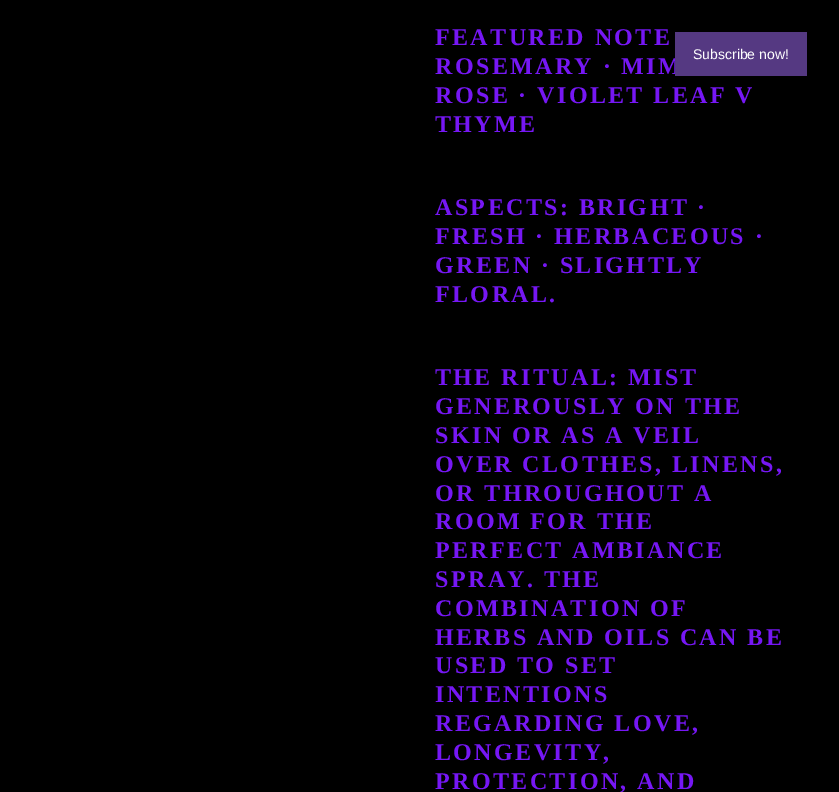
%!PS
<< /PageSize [839 792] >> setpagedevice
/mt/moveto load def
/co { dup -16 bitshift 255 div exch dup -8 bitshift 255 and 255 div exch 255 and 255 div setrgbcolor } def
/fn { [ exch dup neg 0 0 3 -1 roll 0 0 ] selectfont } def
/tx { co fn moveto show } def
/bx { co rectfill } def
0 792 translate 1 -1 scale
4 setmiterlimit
0 0 839 792 16#000000 bx
/LiberationSerif-Bold 24 fn
16#7617F4 co
435 45 mt 2.4 0 (FEATURED NOTE) ashow
435 74 mt 2.4 0 (ROSEMARY · MIM) ashow
435 103 mt 2.4 0 (ROSE · VIOLET LEAF V) ashow
435 132 mt 2.4 0 (THYME) ashow
435 215 mt 2.4 0 (ASPECTS: BRIGHT ·) ashow
435 244 mt 2.4 0 (FRESH · HERBACEOUS ·) ashow
435 273 mt 2.4 0 (GREEN · SLIGHTLY) ashow
435 302 mt 2.4 0 (FLORAL.) ashow
435 385 mt 2.4 0 (THE RITUAL: MIST) ashow
435 414 mt 2.4 0 (GENEROUSLY ON THE) ashow
435 443 mt 2.4 0 (SKIN OR AS A VEIL) ashow
435 472 mt 2.4 0 (OVER CLOTHES, LINENS,) ashow
435 501 mt 2.4 0 (OR THROUGHOUT A) ashow
435 529 mt 2.4 0 (ROOM FOR THE) ashow
435 558 mt 2.4 0 (PERFECT AMBIANCE) ashow
435 587 mt 2.4 0 (SPRAY. THE) ashow
435 616 mt 2.4 0 (COMBINATION OF) ashow
435 645 mt 2.4 0 (HERBS AND OILS CAN BE) ashow
435 673 mt 2.4 0 (USED TO SET) ashow
435 702 mt 2.4 0 (INTENTIONS) ashow
435 731 mt 2.4 0 (REGARDING LOVE,) ashow
435 760 mt 2.4 0 (LONGEVITY,) ashow
435 789 mt 2.4 0 (PROTECTION, AND) ashow
675 32 132 44 16#553982 bx
(Subscribe now!) 693 59 /LiberationSans-Regular 14 16#FFFFFF tx
showpage
